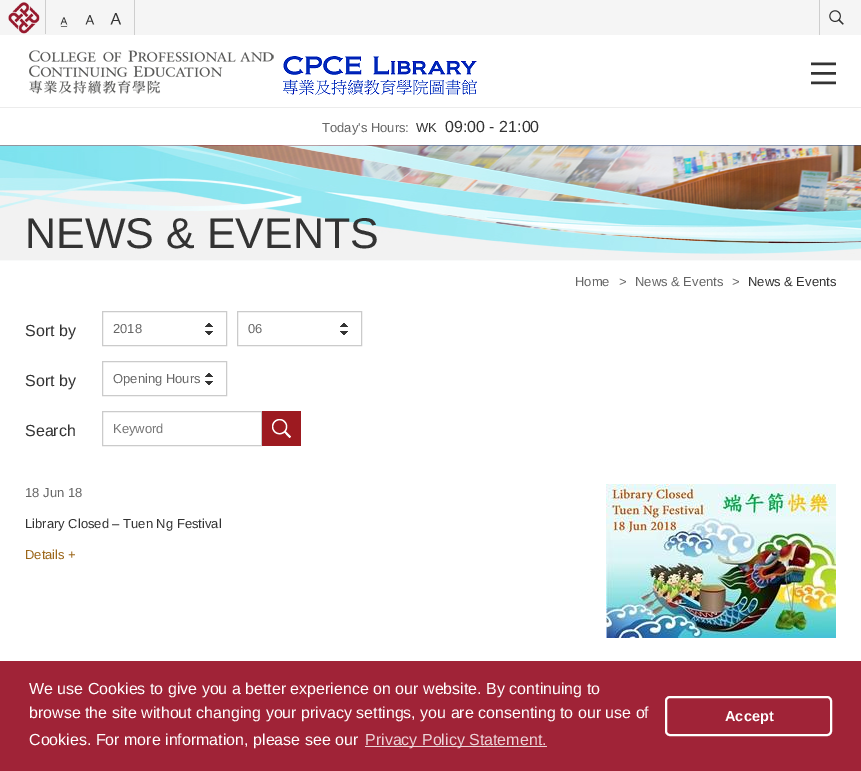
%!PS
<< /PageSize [861 771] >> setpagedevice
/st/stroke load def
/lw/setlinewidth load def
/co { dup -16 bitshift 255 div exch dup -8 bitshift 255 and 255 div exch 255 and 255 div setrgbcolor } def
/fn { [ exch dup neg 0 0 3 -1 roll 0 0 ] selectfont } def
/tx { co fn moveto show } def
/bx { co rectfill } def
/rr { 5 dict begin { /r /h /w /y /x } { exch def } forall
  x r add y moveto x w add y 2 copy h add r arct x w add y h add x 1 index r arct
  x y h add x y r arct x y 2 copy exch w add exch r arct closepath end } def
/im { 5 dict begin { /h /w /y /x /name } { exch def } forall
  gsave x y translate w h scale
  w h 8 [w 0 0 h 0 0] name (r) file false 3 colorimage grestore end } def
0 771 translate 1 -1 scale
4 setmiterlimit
0 0 861 771 16#FFFFFF bx
0 0 861 35 16#F5F5F5 bx
45 0 1 34 16#CECECE bx
(media/1.raw) 8 2 32 32 im
134 0 1 35 16#CECECE bx
(media/2.raw) 60 17 8 10 im
(media/3.raw) 85 15 10 10 im
(media/4.raw) 110 13 11 12 im
819 0 1 35 16#CECECE bx
(media/5.raw) 829 10 15 15 im
(media/6.raw) 29 50 245 44 im
(media/7.raw) 283 56 194 39 im
(media/8.raw) 811 62 25 23 im
0 107 861 1 16#ECECEC bx
(media/9.raw) 0 145 861 115 im
0 260 861 1 16#F9FAFA bx
16#CBCBCB co
102.5 311.5 124 34 rectstroke
(media/10.raw) 205 323 8 12 im
237.5 311.5 124 34 rectstroke
(media/10.raw) 340 323 8 12 im
102.5 361.5 124 34 rectstroke
(media/10.raw) 205 373 8 12 im
102.5 411.5 159 34 rectstroke
(media/11.raw) 262 411 39 35 im
(media/12.raw) 606 484 230 154 im
0 661 861 110 16#A02337 bx
365 746 182 1 16#ECD3D7 bx
16#FFFFFF co
2 lw
666 697 165 38 4 rr st
(Today's Hours:) 322 132 /LiberationSans-Regular 13 16#666666 tx
(WK) 416 132 /LiberationSans-Regular 13 16#333333 tx
(09:00 - 21:00) 445 132 /LiberationSans-Regular 16 16#333333 tx
(NEWS & EVENTS) 25 248 /LiberationSans-Regular 43 16#333333 tx
(Home) 575 286 /LiberationSans-Regular 13 16#666666 tx
(>) 619 286 /LiberationSans-Regular 13 16#666666 tx
(News & Events) 635 286 /LiberationSans-Regular 13 16#666666 tx
(>) 732 286 /LiberationSans-Regular 13 16#666666 tx
(News & Events) 748 286 /LiberationSans-Regular 13 16#333333 tx
(Sort by) 25 336 /LiberationSans-Regular 16 16#333333 tx
(2018) 113 333 /LiberationSans-Regular 13 16#666666 tx
(06) 248 333 /LiberationSans-Regular 13 16#666666 tx
(Sort by) 25 386 /LiberationSans-Regular 16 16#333333 tx
(Opening Hours) 113 383 /LiberationSans-Regular 13 16#666666 tx
(Search) 25 436 /LiberationSans-Regular 16 16#333333 tx
(Keyword) 113 433 /LiberationSans-Regular 13 16#757575 tx
(18 Jun 18) 25 497 /LiberationSans-Regular 13 16#666666 tx
(Library Closed – Tuen Ng Festival) 25 528 /LiberationSans-Regular 13 16#333333 tx
(Details +) 25 559 /LiberationSans-Regular 13 16#9C6619 tx
(We use Cookies to give you a better experience on our website. By continuing to) 29 694 /LiberationSans-Regular 16 16#FFFFFF tx
(browse the site without changing your privacy settings, you are consenting to our use of) 29 718 /LiberationSans-Regular 16 16#FFFFFF tx
(Cookies. For more information, please see our) 29 745 /LiberationSans-Regular 16 16#FFFFFF tx
(Privacy Policy Statement.) 365 745 /LiberationSans-Regular 16 16#ECD3D7 tx
(Accept) 725 721 /LiberationSans-Bold 14.5 16#FFFFFF tx
showpage
